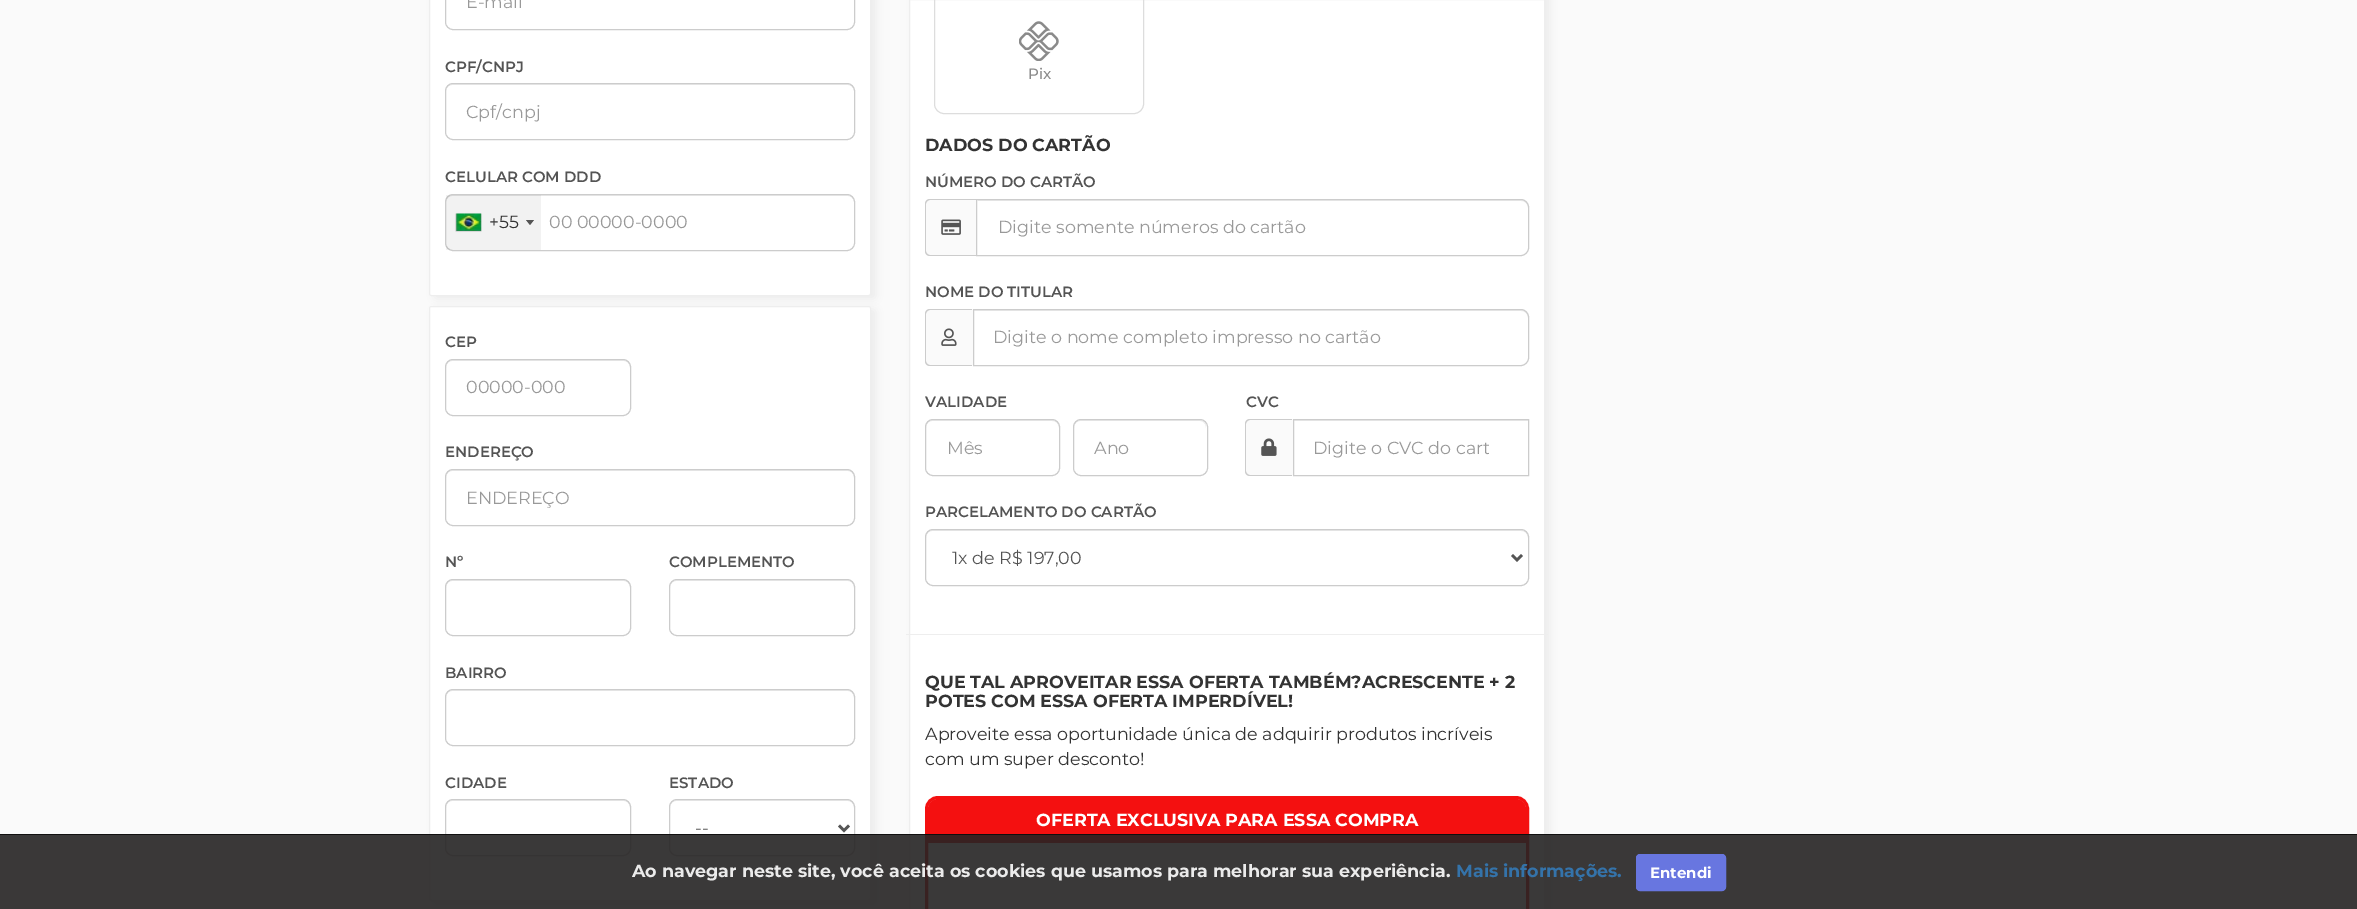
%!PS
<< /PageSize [2357 909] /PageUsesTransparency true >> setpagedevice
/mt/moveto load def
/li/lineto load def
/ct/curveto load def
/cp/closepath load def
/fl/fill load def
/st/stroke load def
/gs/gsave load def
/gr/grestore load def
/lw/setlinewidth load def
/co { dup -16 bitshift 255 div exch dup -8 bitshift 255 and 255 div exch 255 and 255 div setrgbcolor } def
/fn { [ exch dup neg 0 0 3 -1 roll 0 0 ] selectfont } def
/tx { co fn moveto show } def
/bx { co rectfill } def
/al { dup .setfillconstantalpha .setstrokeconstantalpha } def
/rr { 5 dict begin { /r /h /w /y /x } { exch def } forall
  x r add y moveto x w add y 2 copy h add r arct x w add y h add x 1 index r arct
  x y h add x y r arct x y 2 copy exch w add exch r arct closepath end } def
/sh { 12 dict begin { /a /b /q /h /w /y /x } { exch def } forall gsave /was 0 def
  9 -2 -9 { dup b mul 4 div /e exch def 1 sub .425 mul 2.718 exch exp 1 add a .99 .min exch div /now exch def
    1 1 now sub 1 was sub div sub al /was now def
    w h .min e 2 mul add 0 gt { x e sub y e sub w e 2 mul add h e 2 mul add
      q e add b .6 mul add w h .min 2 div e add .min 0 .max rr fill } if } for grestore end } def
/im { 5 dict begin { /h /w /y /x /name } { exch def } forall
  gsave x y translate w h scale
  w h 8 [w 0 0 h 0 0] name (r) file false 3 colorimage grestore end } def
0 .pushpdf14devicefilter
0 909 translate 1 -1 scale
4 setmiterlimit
0 0 2357 909 16#FAFAFA bx
16#000000 co
434 -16 442 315 2.5 4.5 .05 sh
16#FFFFFF co
429.5 -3.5 441 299 2 rr gs fl gr
16#EEEEEE co
st
16#CCCCCC co
445.5 -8.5 409 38 7.5 rr st
16#ECECEC co
452 85 mt 848 85 li 851 85 854 88 854 91 ct 854 90 li 854 87 851 84 848 84 ct 452 84 li 449 84 446 87 446 90 ct 446 91 li 446 88 449 85 452 85 ct cp fl
16#CCCCCC co
445.5 83.5 409 56 7.5 rr st
16#ECECEC co
452 196 mt 848 196 li 851 196 854 199 854 202 ct 854 201 li 854 198 851 195 848 195 ct 452 195 li 449 195 446 198 446 201 ct 446 202 li 446 199 449 196 452 196 ct cp fl
16#CCCCCC co
445.5 194.5 409 56 7.5 rr st
0.05 al
446 195 95 55 16#000000 bx
1 al
16#888888 co
456 214 25 17 0 .5 1 sh
(media/1.raw) 456 213 26 18 im
16#555555 co
526 220 mt 534 220 li 530 225 li cp fl
16#000000 co
434 309 442 595 2.5 4.5 .05 sh
16#FFFFFF co
429.5 306.5 441 594 2 rr gs fl gr
16#EEEEEE co
st
16#ECECEC co
452 361 mt 624 361 li 627 361 630 364 630 368 ct 630 366 li 630 363 627 360 624 360 ct 452 360 li 449 360 446 363 446 366 ct 446 368 li 446 364 449 361 452 361 ct cp fl
16#CCCCCC co
445.5 359.5 185 56 7.5 rr st
16#ECECEC co
452 471 mt 848 471 li 851 471 854 474 854 478 ct 854 474 853 470 848 470 ct 452 470 li 447 470 446 474 446 478 ct 446 474 449 471 452 471 ct cp fl
16#CCCCCC co
445.5 469.5 409 56 7.5 rr st
16#ECECEC co
452 581 mt 624 581 li 627 581 630 584 630 588 ct 630 586 li 630 583 627 580 624 580 ct 452 580 li 449 580 446 583 446 586 ct 446 588 li 446 584 449 581 452 581 ct cp fl
16#CCCCCC co
445.5 579.5 185 56 7.5 rr st
16#ECECEC co
676 581 mt 848 581 li 851 581 854 584 854 588 ct 854 586 li 854 583 851 580 848 580 ct 676 580 li 673 580 670 583 670 586 ct 670 588 li 670 584 673 581 676 581 ct cp fl
16#CCCCCC co
669.5 579.5 185 56 7.5 rr st
16#ECECEC co
452 691 mt 848 691 li 851 691 854 694 854 698 ct 854 694 853 690 848 690 ct 452 690 li 447 690 446 694 446 698 ct 446 694 449 691 452 691 ct cp fl
16#CCCCCC co
445.5 689.5 409 56 7.5 rr st
16#ECECEC co
452 801 mt 624 801 li 627 801 630 804 630 808 ct 630 806 li 630 803 627 800 624 800 ct 452 800 li 449 800 446 803 446 806 ct 446 808 li 446 804 449 801 452 801 ct cp fl
16#CCCCCC co
445.5 799.5 185 56 7.5 rr st
16#ECECEC co
676 801 mt 848 801 li 851 801 854 804 854 808 ct 854 806 li 854 803 851 800 848 800 ct 676 800 li 673 800 670 803 670 806 ct 670 808 li 670 804 673 801 676 801 ct cp fl
16#CCCCCC co
669.5 799.5 185 56 7.5 rr st
16#555555 co
2.5 lw
839 825.5 mt 844 830.5 li 849 825.5 li st
16#000000 co
914 -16 636 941 2.5 4.5 .05 sh
16#FFFFFF co
909.5 -.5 mt 1544.5 -.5 li 1544.5 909.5 li 909.5 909.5 li cp gs fl gr
16#EEEEEE co
1 lw
st
16#DDDDDD co
934.5 -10.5 209 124 9.5 rr st
(media/2.raw) 1019 21 40 40 im
16#FAFAFA co
930 199 mt 976 199 li 976 256 li 930 256 li 927 256 925 254 925 251 ct 925 204 li 925 201 927 199 930 199 ct cp fl
16#CCCCCC co
930 199 mt 976 199 li 976 256 li 930 256 li 927 256 925 254 925 251 ct 925 204 li 925 201 927 199 930 199 ct cp 930 200 mt 976 200 li 976 255 li 930 255 li 928 255 926 253 926 251 ct 926 204 li 926 202 928 200 930 200 ct cp eofill
(media/3.raw) 941 219 20 16 im
16#ECECEC co
978 201 mt 1521 201 li 1525 201 1528 204 1528 208 ct 1528 206 li 1528 203 1525 200 1522 200 ct 978 200 li cp fl
16#CCCCCC co
976.5 199.5 mt 1521 199.5 li 1525 199.5 1528.5 203 1528.5 207 ct 1528.5 248 li 1528.5 252 1525 255.5 1521 255.5 ct 976.5 255.5 li cp st
16#FAFAFA co
930 309 mt 973 309 li 973 366 li 930 366 li 927 366 925 364 925 361 ct 925 314 li 925 311 927 309 930 309 ct cp fl
16#CCCCCC co
930 309 mt 972 309 li 972 366 li 930 366 li 927 366 925 364 925 361 ct 925 314 li 925 311 927 309 930 309 ct cp 930 310 mt 972 310 li 972 365 li 930 365 li 928 365 926 363 926 361 ct 926 314 li 926 312 928 310 930 310 ct cp eofill
(media/4.raw) 941 328 16 18 im
16#ECECEC co
974 311 mt 1521 311 li 1525 311 1528 314 1528 318 ct 1528 316 li 1528 313 1525 310 1522 310 ct 974 310 li cp fl
16#CCCCCC co
973.5 309.5 mt 1521 309.5 li 1525 309.5 1528.5 313 1528.5 317 ct 1528.5 358 li 1528.5 362 1525 365.5 1521 365.5 ct 973.5 365.5 li cp st
16#ECECEC co
932 421 mt 1052 421 li 1056 421 1059 424 1059 428 ct 1059 426 li 1059 423 1056 420 1053 420 ct 932 420 li 929 420 926 423 926 426 ct 926 428 li 926 424 929 421 932 421 ct cp fl
16#CCCCCC co
925.5 419.5 134 56 7.5 rr st
16#ECECEC co
1080 421 mt 1200 421 li 1203 421 1206 424 1206 428 ct 1206 426 li 1206 423 1203 420 1200 420 ct 1080 420 li 1077 420 1074 423 1074 426 ct 1074 428 li 1074 424 1077 421 1080 421 ct cp fl
16#CCCCCC co
1073.5 419.5 134 56 7.5 rr st
16#FAFAFA co
1250 419 mt 1293 419 li 1293 476 li 1250 476 li 1247 476 1245 474 1245 471 ct 1245 424 li 1245 421 1247 419 1250 419 ct cp fl
16#CCCCCC co
1250 419 mt 1292 419 li 1292 476 li 1250 476 li 1247 476 1245 474 1245 471 ct 1245 424 li 1245 421 1247 419 1250 419 ct cp 1250 420 mt 1292 420 li 1292 475 li 1250 475 li 1248 475 1246 473 1246 471 ct 1246 424 li 1246 422 1248 420 1250 420 ct cp eofill
(media/5.raw) 1261 438 16 18 im
1294 420 234 1 16#ECECEC bx
16#CCCCCC co
1293.5 419.5 235 56 rectstroke
16#ECECEC co
932 531 mt 1521 531 li 1525 531 1528 534 1528 538 ct 1528 536 li 1528 533 1525 530 1522 530 ct 932 530 li 929 530 926 533 926 536 ct 926 538 li 926 534 929 531 932 531 ct cp fl
16#CCCCCC co
925.5 529.5 603 56 7.5 rr st
16#555555 co
2.5 lw
1512 555 mt 1517 560 li 1522 555 li st
906 634 642 1 16#EEEEEE bx
16#F41010 co
3 lw
926.5 797.5 601 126 11.5 rr st
938 799 mt 1516 799 li 1521.5 799 1526 803.5 1526 809 ct 1526 843 li 928 843 li 928 809 li 928 803.5 932.5 799 938 799 ct cp fl
0.9 al
0 834 2357 75 16#252323 bx
0 834 2357 1 16#0C0C0C bx
1 al
16#6876E0 co
1636.5 854.5 89 36 3.5 rr gs fl gr
1 lw
st
(E-mail) 466 8 /Montserrat-Regular 17.5 16#999999 tx
(CPF/CNPJ) 445 72 /Montserrat-SemiBold 15 16#545454 tx
(Cpf/cnpj) 466 118 /Montserrat-Regular 17.5 16#999999 tx
(CELULAR COM DDD) 445 182 /Montserrat-SemiBold 15 16#545454 tx
(+55) 489 228 /Montserrat-Regular 17.5 16#333333 tx
(00 00000-0000) 549 228 /Montserrat-Regular 17.5 16#999999 tx
(CEP) 445 347 /Montserrat-SemiBold 15 16#545454 tx
(00000-000) 466 393 /Montserrat-Regular 17.5 16#999999 tx
(ENDEREÇO) 445 457 /Montserrat-SemiBold 15 16#545454 tx
(ENDEREÇO) 466 504 /Montserrat-Regular 17.5 16#999999 tx
(Nº) 445 567 /Montserrat-SemiBold 15 16#545454 tx
(COMPLEMENTO) 669 567 /Montserrat-SemiBold 15 16#545454 tx
(BAIRRO) 445 678 /Montserrat-SemiBold 15 16#545454 tx
(CIDADE) 445 788 /Montserrat-SemiBold 15 16#545454 tx
(ESTADO) 669 788 /Montserrat-SemiBold 15 16#545454 tx
(--) 695 834 /Montserrat-Regular 17.5 16#545454 tx
(Pix) 1028 79 /Montserrat-Medium 15 16#8A8A8A tx
(DADOS DO CARTÃO) 925 151 /Montserrat-Bold 17.5 16#333333 tx
(NÚMERO DO CARTÃO) 925 187 /Montserrat-SemiBold 15 16#545454 tx
(Digite somente números do cartão) 998 233 /Montserrat-Regular 17.5 16#999999 tx
(NOME DO TITULAR) 925 297 /Montserrat-SemiBold 15 16#545454 tx
(Digite o nome completo impresso no cartão) 993 343 /Montserrat-Regular 17.5 16#999999 tx
(VALIDADE) 925 407 /Montserrat-SemiBold 15 16#545454 tx
(Mês) 947 454 /Montserrat-Regular 17.5 16#999999 tx
(Ano) 1094 454 /Montserrat-Regular 17.5 16#999999 tx
(CVC) 1246 407 /Montserrat-SemiBold 15 16#545454 tx
gs
1314 436 175 23 rectclip
(Digite o CVC do cart) 1313 454 /Montserrat-Regular 17.5 16#999999 tx
gr
(PARCELAMENTO DO CARTÃO) 925 517 /Montserrat-SemiBold 15 16#545454 tx
(1x de R$ 197,00) 952 564 /Montserrat-Regular 17.5 16#545454 tx
(QUE TAL APROVEITAR ESSA OFERTA TAMBÉM?ACRESCENTE + 2) 925 688 /Montserrat-Bold 17.5 16#333333 tx
(POTES COM ESSA OFERTA IMPERDÍVEL!) 925 707 /Montserrat-Bold 17.5 16#333333 tx
(Aproveite essa oportunidade única de adquirir produtos incríveis) 925 740 /Montserrat-Regular 17.5 16#333333 tx
(com um super desconto!) 925 765 /Montserrat-Regular 17.5 16#333333 tx
(OFERTA EXCLUSIVA PARA ESSA COMPRA) 1036 826 /Montserrat-Bold 17.5 16#FFFFFF tx
(Ao navegar neste site, você aceita os cookies que usamos para melhorar sua experiência.) 632 877 /Montserrat-Bold 17.5 16#EBEBEB tx
(Mais informações.) 1456 877 /Montserrat-Bold 17.5 16#3473AA tx
(Entendi) 1650 878 /Montserrat-Bold 15 16#FFFFFF tx
.poppdf14devicefilter showpage
